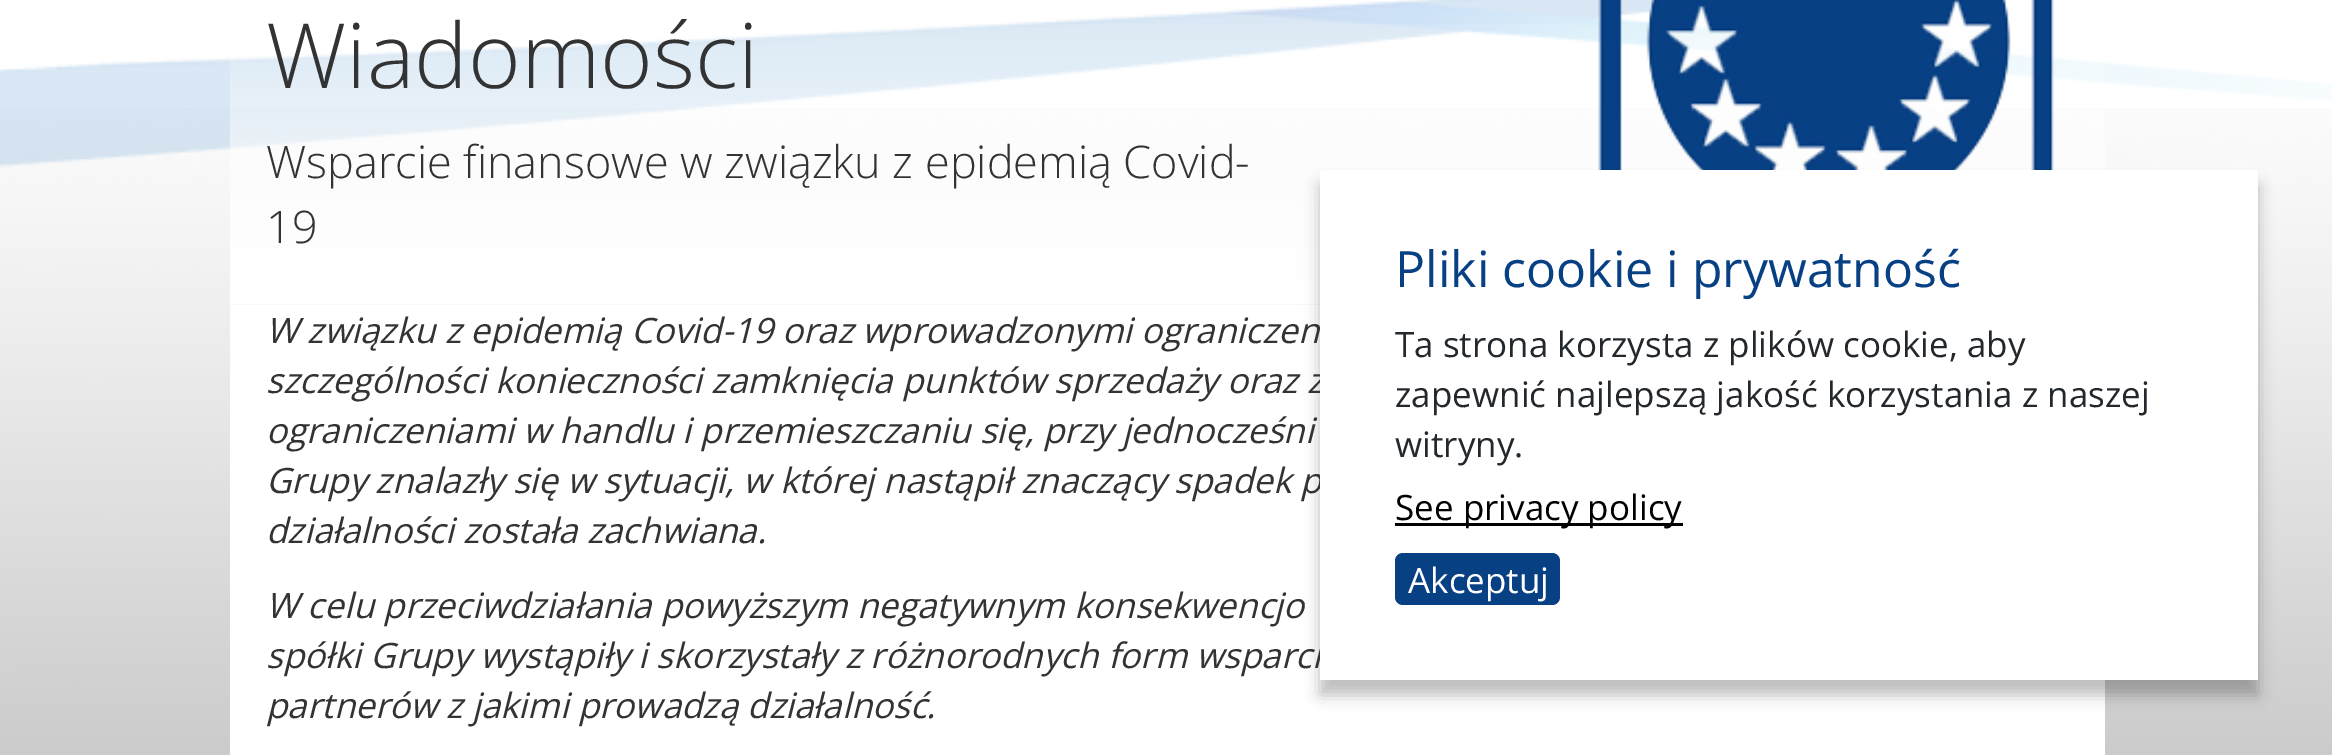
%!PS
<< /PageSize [2332 755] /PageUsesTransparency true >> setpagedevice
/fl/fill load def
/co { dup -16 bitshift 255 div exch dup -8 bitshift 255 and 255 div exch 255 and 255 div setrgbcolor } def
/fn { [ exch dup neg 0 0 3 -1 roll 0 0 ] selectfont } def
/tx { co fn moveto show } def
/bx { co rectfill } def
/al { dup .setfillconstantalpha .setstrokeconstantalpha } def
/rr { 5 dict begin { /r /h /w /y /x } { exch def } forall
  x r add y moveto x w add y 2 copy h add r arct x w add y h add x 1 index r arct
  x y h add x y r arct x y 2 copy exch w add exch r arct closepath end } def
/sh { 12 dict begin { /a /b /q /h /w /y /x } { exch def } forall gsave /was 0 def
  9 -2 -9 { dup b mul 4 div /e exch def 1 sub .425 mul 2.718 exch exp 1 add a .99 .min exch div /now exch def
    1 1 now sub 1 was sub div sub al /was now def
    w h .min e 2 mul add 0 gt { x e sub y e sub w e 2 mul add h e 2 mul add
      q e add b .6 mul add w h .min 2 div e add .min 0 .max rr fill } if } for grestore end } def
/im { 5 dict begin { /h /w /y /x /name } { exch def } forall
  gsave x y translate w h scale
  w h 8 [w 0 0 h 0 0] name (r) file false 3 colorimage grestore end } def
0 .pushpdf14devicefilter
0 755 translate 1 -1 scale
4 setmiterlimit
0 0 2332 755 16#FFFFFF bx
(media/1.raw) 0 108 2332 647 im
(media/2.raw) 0 0 2332 168 im
(media/3.raw) 230 24 1875 281 im
(media/4.raw) 1598 0 457 170 im
230 305 1875 450 16#FFFFFF bx
16#000000 co
1320 185 938 510 0 7.5 .25 sh
(Wiadomości) 266 88 /OpenSans-Light 90 16#333333 tx
(Wsparcie finansowe w związku z epidemią Covid-) 266 178 /OpenSans-Light 45 16#333333 tx
(19) 266 243 /OpenSans-Light 45 16#333333 tx
(W związku z epidemią Covid-19 oraz wprowadzonymi ograniczen) 266 343 /OpenSans-Italic 35 16#333333 tx
(szczególności konieczności zamknięcia punktów sprzedaży oraz z) 266 393 /OpenSans-Italic 35 16#333333 tx
(ograniczeniami w handlu i przemieszczaniu się, przy jednocześni) 266 443 /OpenSans-Italic 35 16#333333 tx
(Grupy znalazły się w sytuacji, w której nastąpił znaczący spadek p) 266 493 /OpenSans-Italic 35 16#333333 tx
(działalności została zachwiana.) 266 543 /OpenSans-Italic 35 16#333333 tx
(W celu przeciwdziałania powyższym negatywnym konsekwencjo) 266 618 /OpenSans-Italic 35 16#333333 tx
(spółki Grupy wystąpiły i skorzystały z różnorodnych form wsparci) 266 668 /OpenSans-Italic 35 16#333333 tx
(partnerów z jakimi prowadzą działalność.) 266 718 /OpenSans-Italic 35 16#333333 tx
1320 170 938 510 16#FFFFFF bx
(Pliki cookie i prywatność) 1395 287 /OpenSans-Regular 50 16#084084 tx
(Ta strona korzysta z plików cookie, aby) 1395 357 /OpenSans-Regular 35 16#23282D tx
(zapewnić najlepszą jakość korzystania z naszej) 1395 407 /OpenSans-Regular 35 16#23282D tx
(witryny.) 1395 457 /OpenSans-Regular 35 16#23282D tx
1395 523 288 3 16#000000 bx
(See privacy policy) 1395 520 /OpenSans-Regular 35 16#000000 tx
16#084084 co
1395 553 165 52 8 rr fl
(Akceptuj) 1408 593 /OpenSans-Regular 35 16#FFFFFF tx
.poppdf14devicefilter showpage
